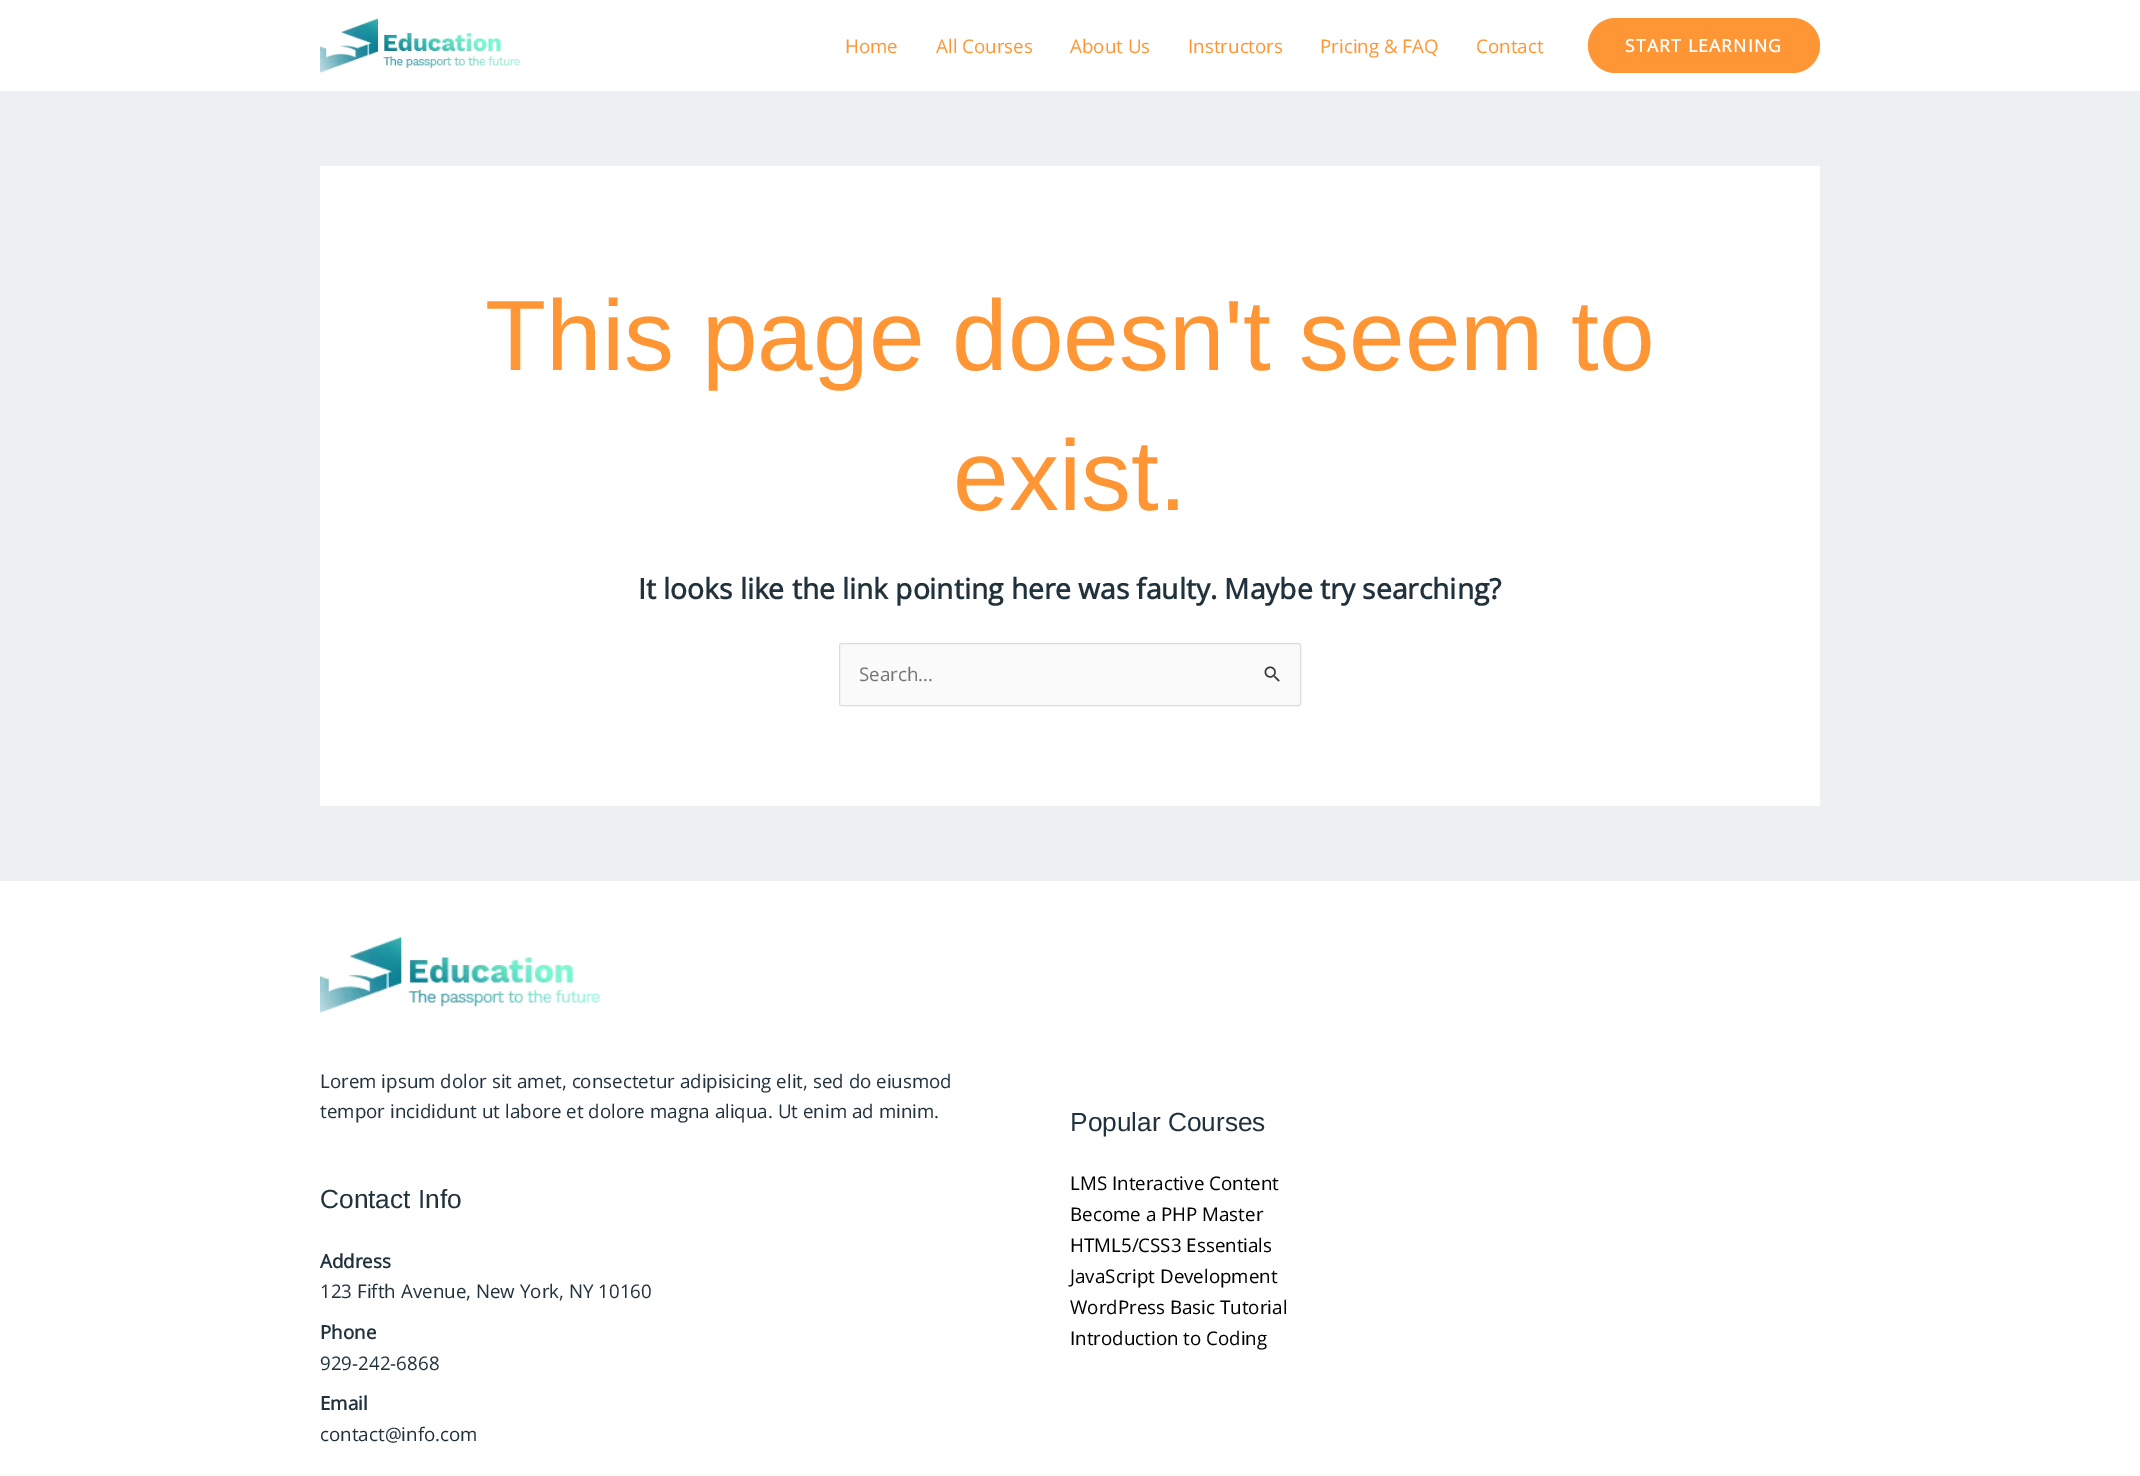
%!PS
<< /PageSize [2140 1476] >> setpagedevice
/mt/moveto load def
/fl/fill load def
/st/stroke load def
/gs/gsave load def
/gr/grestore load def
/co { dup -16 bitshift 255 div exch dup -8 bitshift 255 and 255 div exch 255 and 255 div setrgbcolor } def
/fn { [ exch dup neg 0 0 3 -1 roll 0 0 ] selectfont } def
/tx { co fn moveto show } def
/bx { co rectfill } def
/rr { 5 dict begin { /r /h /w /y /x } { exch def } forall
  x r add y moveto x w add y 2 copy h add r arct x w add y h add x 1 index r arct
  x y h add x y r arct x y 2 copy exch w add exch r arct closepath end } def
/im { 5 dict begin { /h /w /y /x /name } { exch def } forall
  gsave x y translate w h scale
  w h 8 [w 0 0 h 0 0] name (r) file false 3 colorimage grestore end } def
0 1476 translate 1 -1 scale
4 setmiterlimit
0 0 2140 1476 16#ECF0F2 bx
0 0 2140 91 16#FFFFFF bx
(media/1.raw) 320 18 200 55 im
16#FF9635 co
1588 18 232 55 27.5 rr fl
320 166 1500 640 16#FFFFFF bx
16#FAFAFA co
839.5 643.5 461 62 2 rr gs fl gr
16#DDDDDD co
st
(media/2.raw) 1264 666 16 16 im
0 881 2140 595 16#FFFFFF bx
(media/3.raw) 320 937 280 76 im
(Home) 845 53 /OpenSans-Regular 18.75 16#FF9635 tx
(All Courses) 936 53 /OpenSans-Regular 18.75 16#FF9635 tx
(About Us) 1070 53 /OpenSans-Regular 18.75 16#FF9635 tx
(Instructors) 1188 53 /OpenSans-Regular 18.75 16#FF9635 tx
(Pricing & FAQ) 1320 53 /OpenSans-Regular 18.75 16#FF9635 tx
(Contact) 1476 53 /OpenSans-Regular 18.75 16#FF9635 tx
/OpenSans-Bold 17.5 fn
16#FFFFFF co
1625 52 mt 1.25 0 (START LEARNING) ashow
(This page doesn't seem to) 485 370 /LiberationSans-Regular 100 16#FF9635 tx
(exist.) 953 510 /LiberationSans-Regular 100 16#FF9635 tx
(It looks like the link pointing here was faulty. Maybe try searching?) 638 599 /OpenSans-Bold 28.1 16#22323D tx
(Search...) 859 681 /OpenSans-Regular 18.75 16#757575 tx
(Lorem ipsum dolor sit amet, consectetur adipisicing elit, sed do eiusmod) 320 1088 /OpenSans-Regular 18.75 16#22323D tx
(tempor incididunt ut labore et dolore magna aliqua. Ut enim ad minim.) 320 1118 /OpenSans-Regular 18.75 16#22323D tx
(Contact Info) 320 1208 /LiberationSans-Regular 26.25 16#22323D tx
(Address) 320 1268 /OpenSans-Bold 18.75 16#22323D tx
(123 Fifth Avenue, New York, NY 10160) 320 1298 /OpenSans-Regular 18.75 16#22323D tx
(Phone) 320 1339 /OpenSans-Bold 18.75 16#22323D tx
(929-242-6868) 320 1370 /OpenSans-Regular 18.75 16#22323D tx
(Email) 320 1410 /OpenSans-Bold 18.75 16#22323D tx
(contact@info.com) 320 1441 /OpenSans-Regular 18.75 16#22323D tx
(Popular Courses) 1070 1131 /LiberationSans-Regular 26.25 16#22323D tx
(LMS Interactive Content) 1070 1190 /OpenSans-Regular 18.75 16#000000 tx
(Become a PHP Master) 1070 1221 /OpenSans-Regular 18.75 16#000000 tx
(HTML5/CSS3 Essentials) 1070 1252 /OpenSans-Regular 18.75 16#000000 tx
(JavaScript Development) 1070 1283 /OpenSans-Regular 18.75 16#000000 tx
(WordPress Basic Tutorial) 1070 1314 /OpenSans-Regular 18.75 16#000000 tx
(Introduction to Coding) 1070 1345 /OpenSans-Regular 18.75 16#000000 tx
showpage
